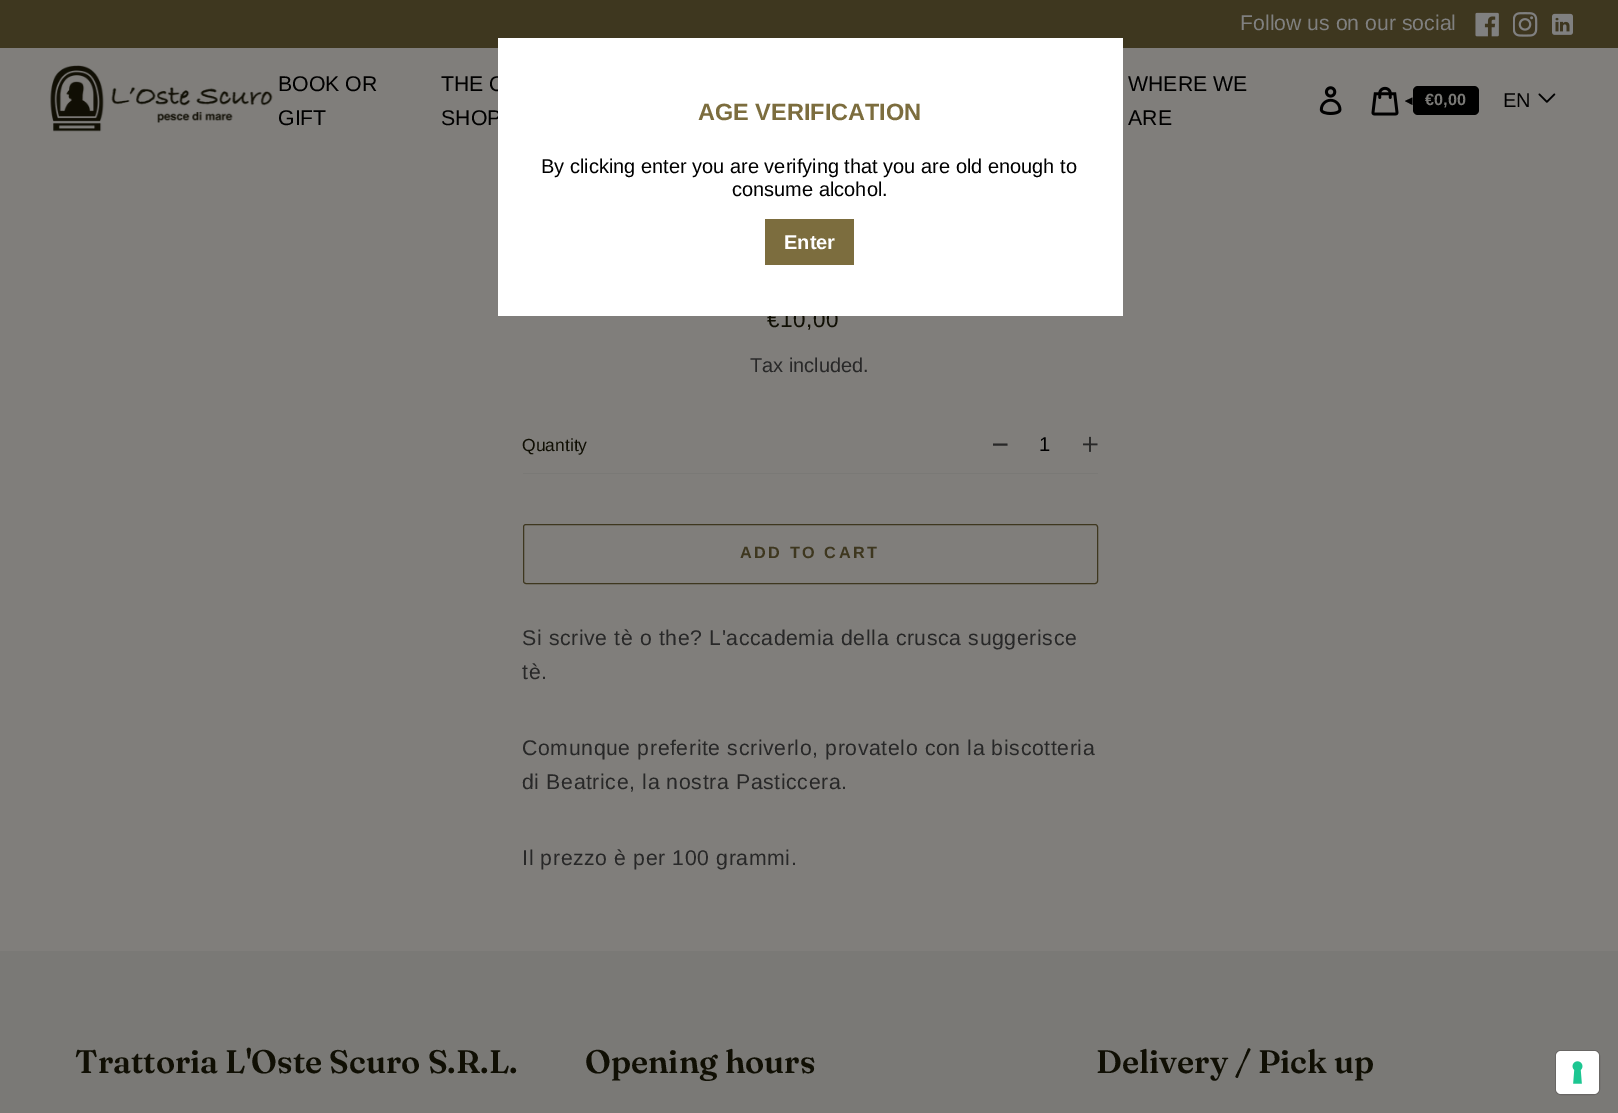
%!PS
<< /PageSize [1618 1113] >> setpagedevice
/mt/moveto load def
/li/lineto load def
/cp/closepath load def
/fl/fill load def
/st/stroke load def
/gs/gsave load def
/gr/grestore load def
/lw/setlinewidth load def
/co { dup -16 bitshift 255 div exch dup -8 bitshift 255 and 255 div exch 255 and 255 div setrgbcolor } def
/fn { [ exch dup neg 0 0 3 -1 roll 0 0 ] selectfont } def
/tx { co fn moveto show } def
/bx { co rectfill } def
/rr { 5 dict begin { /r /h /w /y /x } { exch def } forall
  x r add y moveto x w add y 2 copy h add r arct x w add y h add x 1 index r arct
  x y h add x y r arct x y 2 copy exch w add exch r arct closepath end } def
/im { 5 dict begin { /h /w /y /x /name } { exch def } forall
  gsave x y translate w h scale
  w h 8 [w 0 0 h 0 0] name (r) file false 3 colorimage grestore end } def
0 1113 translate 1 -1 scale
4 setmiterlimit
0 0 1618 1113 16#807E7B bx
0 0 1618 48 16#3E371F bx
(media/1.raw) 1475 12 24 25 im
(media/2.raw) 1513 12 25 25 im
(media/3.raw) 1552 13 21 22 im
(media/4.raw) 50 65 223 67 im
(media/5.raw) 1319 86 23 29 im
(media/6.raw) 1371 86 28 30 im
16#000000 co
1413 86 66 29 5 rr fl
1412.5 97.5 mt 1412.5 105 li 1405 101 li cp fl
(media/7.raw) 1538 93 18 10 im
523 473 575 1 16#7A7976 bx
gs
993 435 15 19 rectclip
16#282828 co
1.9 lw
992.5 444.5 mt 1007.5 444.5 li st
gr
(media/8.raw) 1083 436 15 16 im
16#3E371F co
523.5 524.5 574 59 2.5 rr st
0 951 1618 162 16#7A7976 bx
16#686664 co
1555.5 1050.5 44 44 5.5 rr st
16#FFFFFF co
1556 1051 43 43 5 rr fl
(media/9.raw) 1572 1061 11 23 im
(Follow us on our social) 1240 30 /LiberationSans-Regular 21.25 16#808080 tx
(BOOK OR) 278 91 /LiberationSans-Regular 21.25 16#000000 tx
(GIFT) 278 125 /LiberationSans-Regular 21.25 16#000000 tx
(THE O) 441 91 /LiberationSans-Regular 21.25 16#000000 tx
(SHOP) 441 125 /LiberationSans-Regular 21.25 16#000000 tx
(WHERE WE) 1128 91 /LiberationSans-Regular 21.25 16#000000 tx
(ARE) 1128 125 /LiberationSans-Regular 21.25 16#000000 tx
(€0,00) 1425 105 /LiberationSans-Bold 16.25 16#7A7976 tx
(EN) 1503 107 /LiberationSans-Regular 20 16#000000 tx
/LiberationSans-Regular 22.5 fn
16#100F04 co
767 327 mt .62 0 (€10,00) ashow
498 38 625 278 16#FFFFFF bx
765 219 89 46 16#7C6D3E bx
(Enter) 784 249 /LiberationSans-Bold 20 16#FFFFFF tx
(consume alcohol.) 732 196 /LiberationSans-Regular 20 16#000000 tx
(By clicking enter you are verifying that you are old enough to) 541 173 /LiberationSans-Regular 20 16#000000 tx
(AGE VERIFICATION) 698 120 /LiberationSans-Bold 23.5 16#7C6D3E tx
(Tax included.) 750 372 /LiberationSans-Regular 20 16#282828 tx
(Quantity) 522 451 /LiberationSans-Regular 17.5 16#100F04 tx
(1) 1039 451 /LiberationSans-Regular 20 16#000000 tx
/LiberationSans-Bold 16.25 fn
16#3E371F co
740 558 mt 2.5 0 (ADD TO CART) ashow
/LiberationSans-Regular 21.25 fn
16#282828 co
522 645 mt .62 0 (Si scrive tè o the? L'accademia della crusca suggerisce) ashow
522 679 mt .62 0 (tè.) ashow
522 755 mt .62 0 (Comunque preferite scriverlo, provatelo con la biscotteria) ashow
522 789 mt .62 0 (di Beatrice, la nostra Pasticcera.) ashow
522 865 mt .62 0 (Il prezzo è per 100 grammi.) ashow
(Trattoria L'Oste Scuro S.R.L.) 75 1073 /Fraunces-SemiBold 32.5 16#100F04 tx
(Opening hours) 585 1073 /Fraunces-SemiBold 32.5 16#100F04 tx
(Delivery / Pick up) 1096 1073 /Fraunces-SemiBold 32.5 16#100F04 tx
showpage
